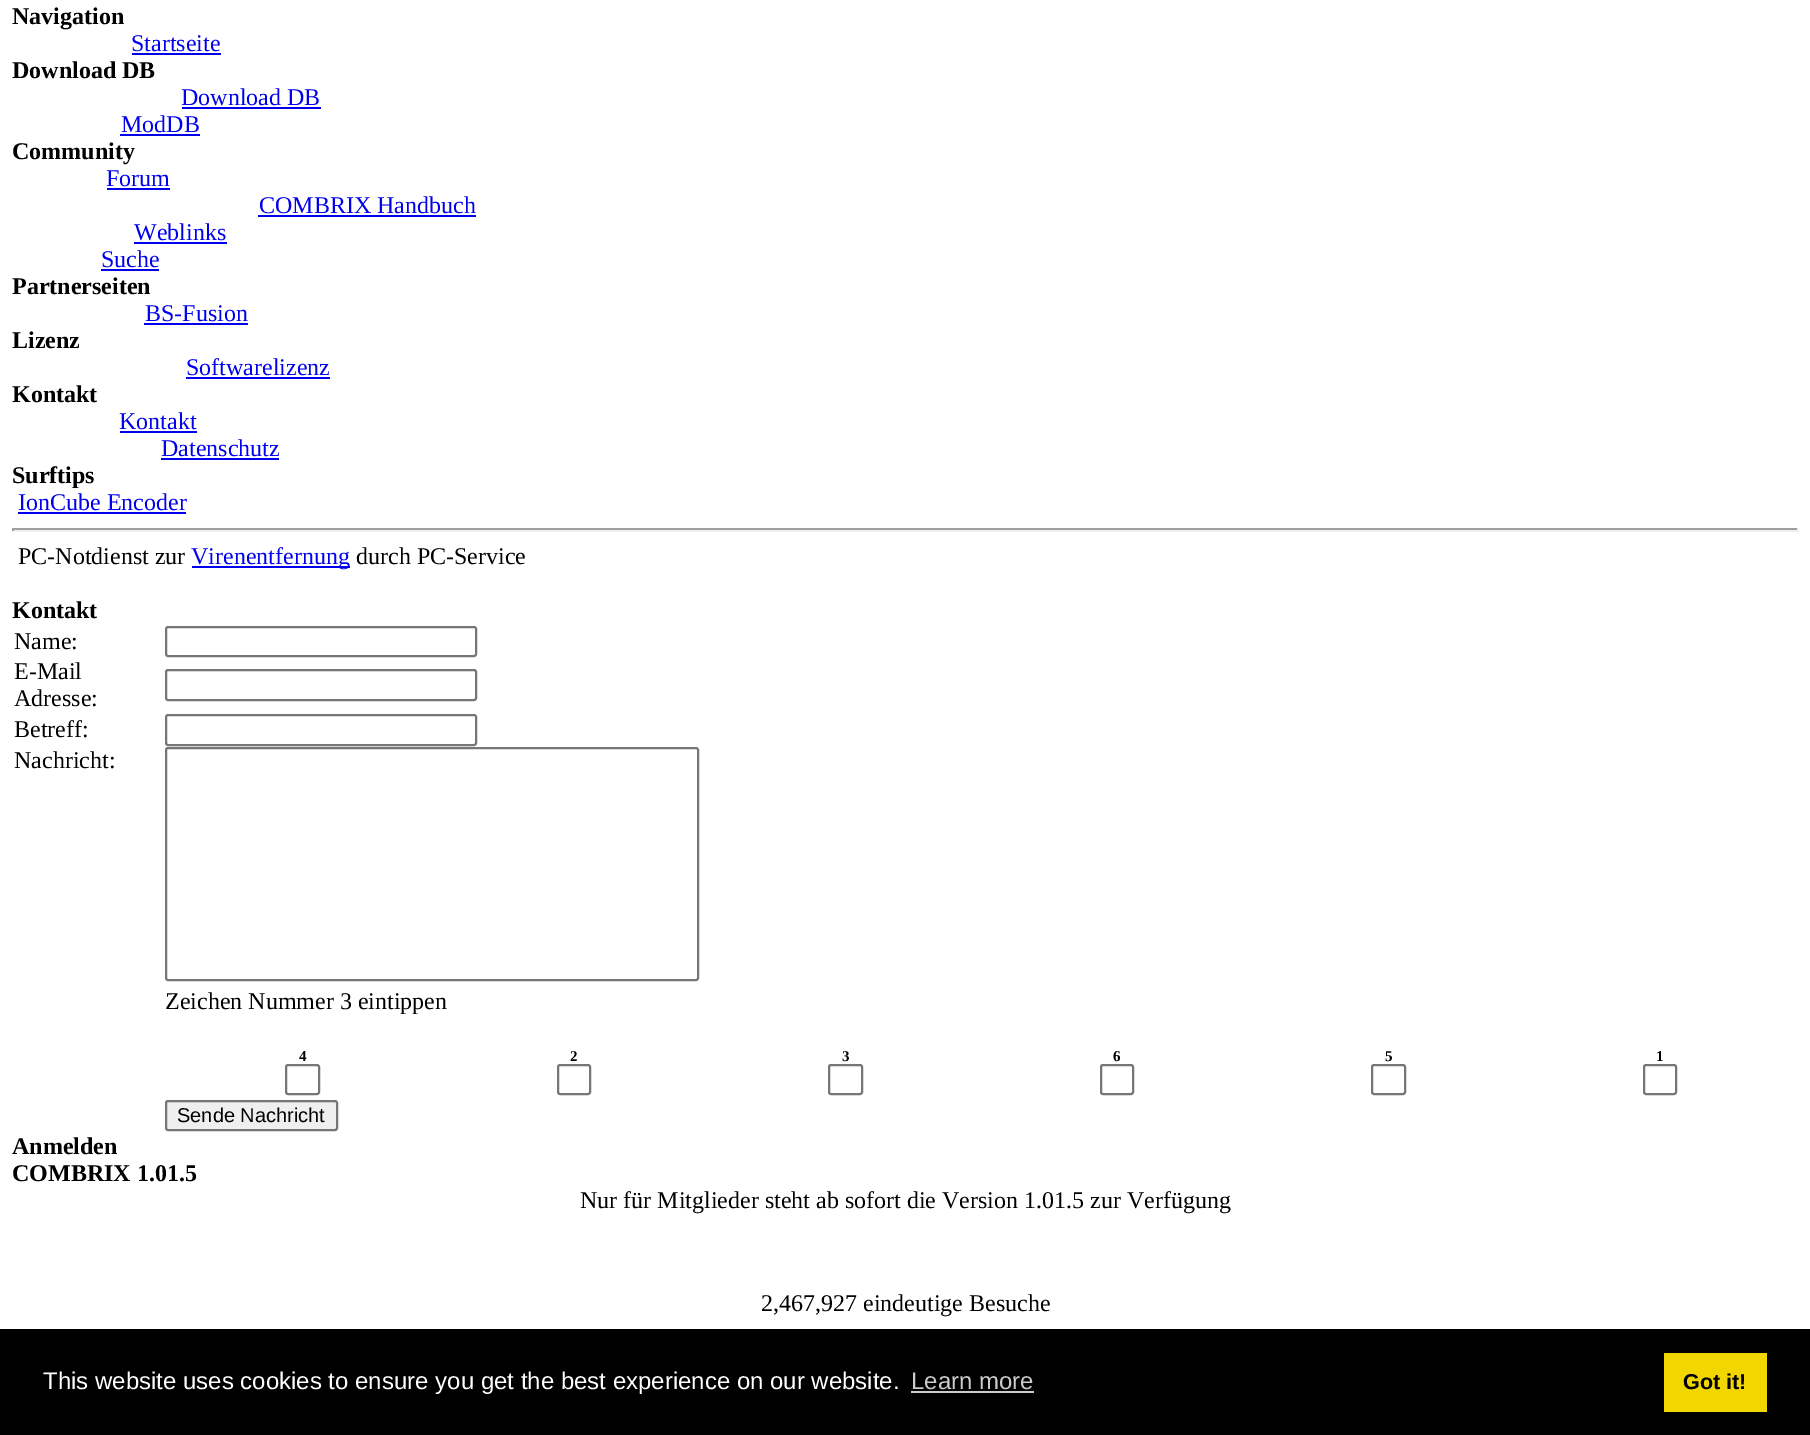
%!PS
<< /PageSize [1810 1435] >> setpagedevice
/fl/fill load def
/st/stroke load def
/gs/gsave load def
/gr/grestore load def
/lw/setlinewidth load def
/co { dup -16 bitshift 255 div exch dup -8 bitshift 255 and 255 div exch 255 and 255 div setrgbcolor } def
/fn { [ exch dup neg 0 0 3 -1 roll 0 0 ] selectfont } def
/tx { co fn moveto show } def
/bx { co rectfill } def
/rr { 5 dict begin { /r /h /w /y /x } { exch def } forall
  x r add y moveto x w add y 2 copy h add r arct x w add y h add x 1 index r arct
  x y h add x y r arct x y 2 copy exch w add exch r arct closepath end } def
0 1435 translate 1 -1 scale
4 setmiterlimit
0 0 1810 1435 16#FFFFFF bx
132 53 89 2 16#0000EE bx
182 107 139 2 16#0000EE bx
120 134 80 2 16#0000EE bx
107 188 63 2 16#0000EE bx
258 215 218 2 16#0000EE bx
134 242 93 2 16#0000EE bx
101 269 58 2 16#0000EE bx
144 323 104 2 16#0000EE bx
186 377 144 2 16#0000EE bx
120 431 77 2 16#0000EE bx
161 458 118 2 16#0000EE bx
18 512 168 2 16#0000EE bx
12 528 1787 2 16#9F9F9F bx
1797 528 2 3 16#EEEEEE bx
12 530 1787 2 16#EEEEEE bx
12 528 2 3 16#9F9F9F bx
192 566 158 2 16#0000EE bx
16#767676 co
2 lw
166 627 310 29 2 rr st
166 670 310 30 2 rr st
166 715 310 30 2 rr st
166 748 532 232 2 rr st
286 1065 33 29 2 rr st
558 1065 32 29 2 rr st
829 1065 33 29 2 rr st
1101 1065 32 29 2 rr st
1372 1065 33 29 2 rr st
1644 1065 32 29 2 rr st
16#EFEFEF co
166 1101 171 29 2 rr gs fl gr
16#767676 co
st
0 1329 1810 106 16#000000 bx
911 1391 123 2 16#CCCCCC bx
1664 1353 103 59 16#F1D600 bx
(Navigation) 12 24 /LiberationSerif-Bold 24 16#000000 tx
(Startseite) 131 51 /LiberationSerif-Regular 24 16#0000EE tx
(Download DB) 12 78 /LiberationSerif-Bold 24 16#000000 tx
(Download DB) 181 105 /LiberationSerif-Regular 24 16#0000EE tx
(ModDB) 121 132 /LiberationSerif-Regular 24 16#0000EE tx
(Community) 12 159 /LiberationSerif-Bold 24 16#000000 tx
(Forum) 106 186 /LiberationSerif-Regular 24 16#0000EE tx
(COMBRIX Handbuch) 259 213 /LiberationSerif-Regular 24 16#0000EE tx
(Weblinks) 134 240 /LiberationSerif-Regular 24 16#0000EE tx
(Suche) 101 267 /LiberationSerif-Regular 24 16#0000EE tx
(Partnerseiten) 12 294 /LiberationSerif-Bold 24 16#000000 tx
(BS-Fusion) 145 321 /LiberationSerif-Regular 24 16#0000EE tx
(Lizenz) 12 348 /LiberationSerif-Bold 24 16#000000 tx
(Softwarelizenz) 186 375 /LiberationSerif-Regular 24 16#0000EE tx
(Kontakt) 12 402 /LiberationSerif-Bold 24 16#000000 tx
(Kontakt) 119 429 /LiberationSerif-Regular 24 16#0000EE tx
(Datenschutz) 161 456 /LiberationSerif-Regular 24 16#0000EE tx
(Surftips) 12 483 /LiberationSerif-Bold 24 16#000000 tx
(IonCube Encoder) 18 510 /LiberationSerif-Regular 24 16#0000EE tx
(PC-Notdienst zur) 18 564 /LiberationSerif-Regular 24 16#000000 tx
(Virenentfernung) 191 564 /LiberationSerif-Regular 24 16#0000EE tx
(durch PC-Service) 356 564 /LiberationSerif-Regular 24 16#000000 tx
(Kontakt) 12 618 /LiberationSerif-Bold 24 16#000000 tx
(Name:) 14 649 /LiberationSerif-Regular 24 16#000000 tx
(E-Mail) 14 679 /LiberationSerif-Regular 24 16#000000 tx
(Adresse:) 14 706 /LiberationSerif-Regular 24 16#000000 tx
(Betreff:) 14 737 /LiberationSerif-Regular 24 16#000000 tx
(Nachricht:) 14 768 /LiberationSerif-Regular 24 16#000000 tx
(Zeichen Nummer 3 eintippen) 165 1009 /LiberationSerif-Regular 24 16#000000 tx
(4) 299 1061 /LiberationSerif-Bold 15 16#000000 tx
(2) 570 1061 /LiberationSerif-Bold 15 16#000000 tx
(3) 842 1061 /LiberationSerif-Bold 15 16#000000 tx
(6) 1113 1061 /LiberationSerif-Bold 15 16#000000 tx
(5) 1385 1061 /LiberationSerif-Bold 15 16#000000 tx
(1) 1656 1061 /LiberationSerif-Bold 15 16#000000 tx
(Sende Nachricht) 177 1122 /LiberationSans-Regular 20 16#000000 tx
(Anmelden) 12 1154 /LiberationSerif-Bold 24 16#000000 tx
(COMBRIX 1.01.5) 12 1181 /LiberationSerif-Bold 24 16#000000 tx
(Nur für Mitglieder steht ab sofort die Version 1.01.5 zur Verfügung) 580 1208 /LiberationSerif-Regular 24 16#000000 tx
(2,467,927 eindeutige Besuche) 761 1311 /LiberationSerif-Regular 24 16#000000 tx
(This website uses cookies to ensure you get the best experience on our website.) 43 1389 /LiberationSans-Regular 24 16#FFFFFF tx
(Learn more) 911 1389 /LiberationSans-Regular 24 16#CCCCCC tx
(Got it!) 1683 1389 /LiberationSans-Bold 21.5 16#000000 tx
showpage
